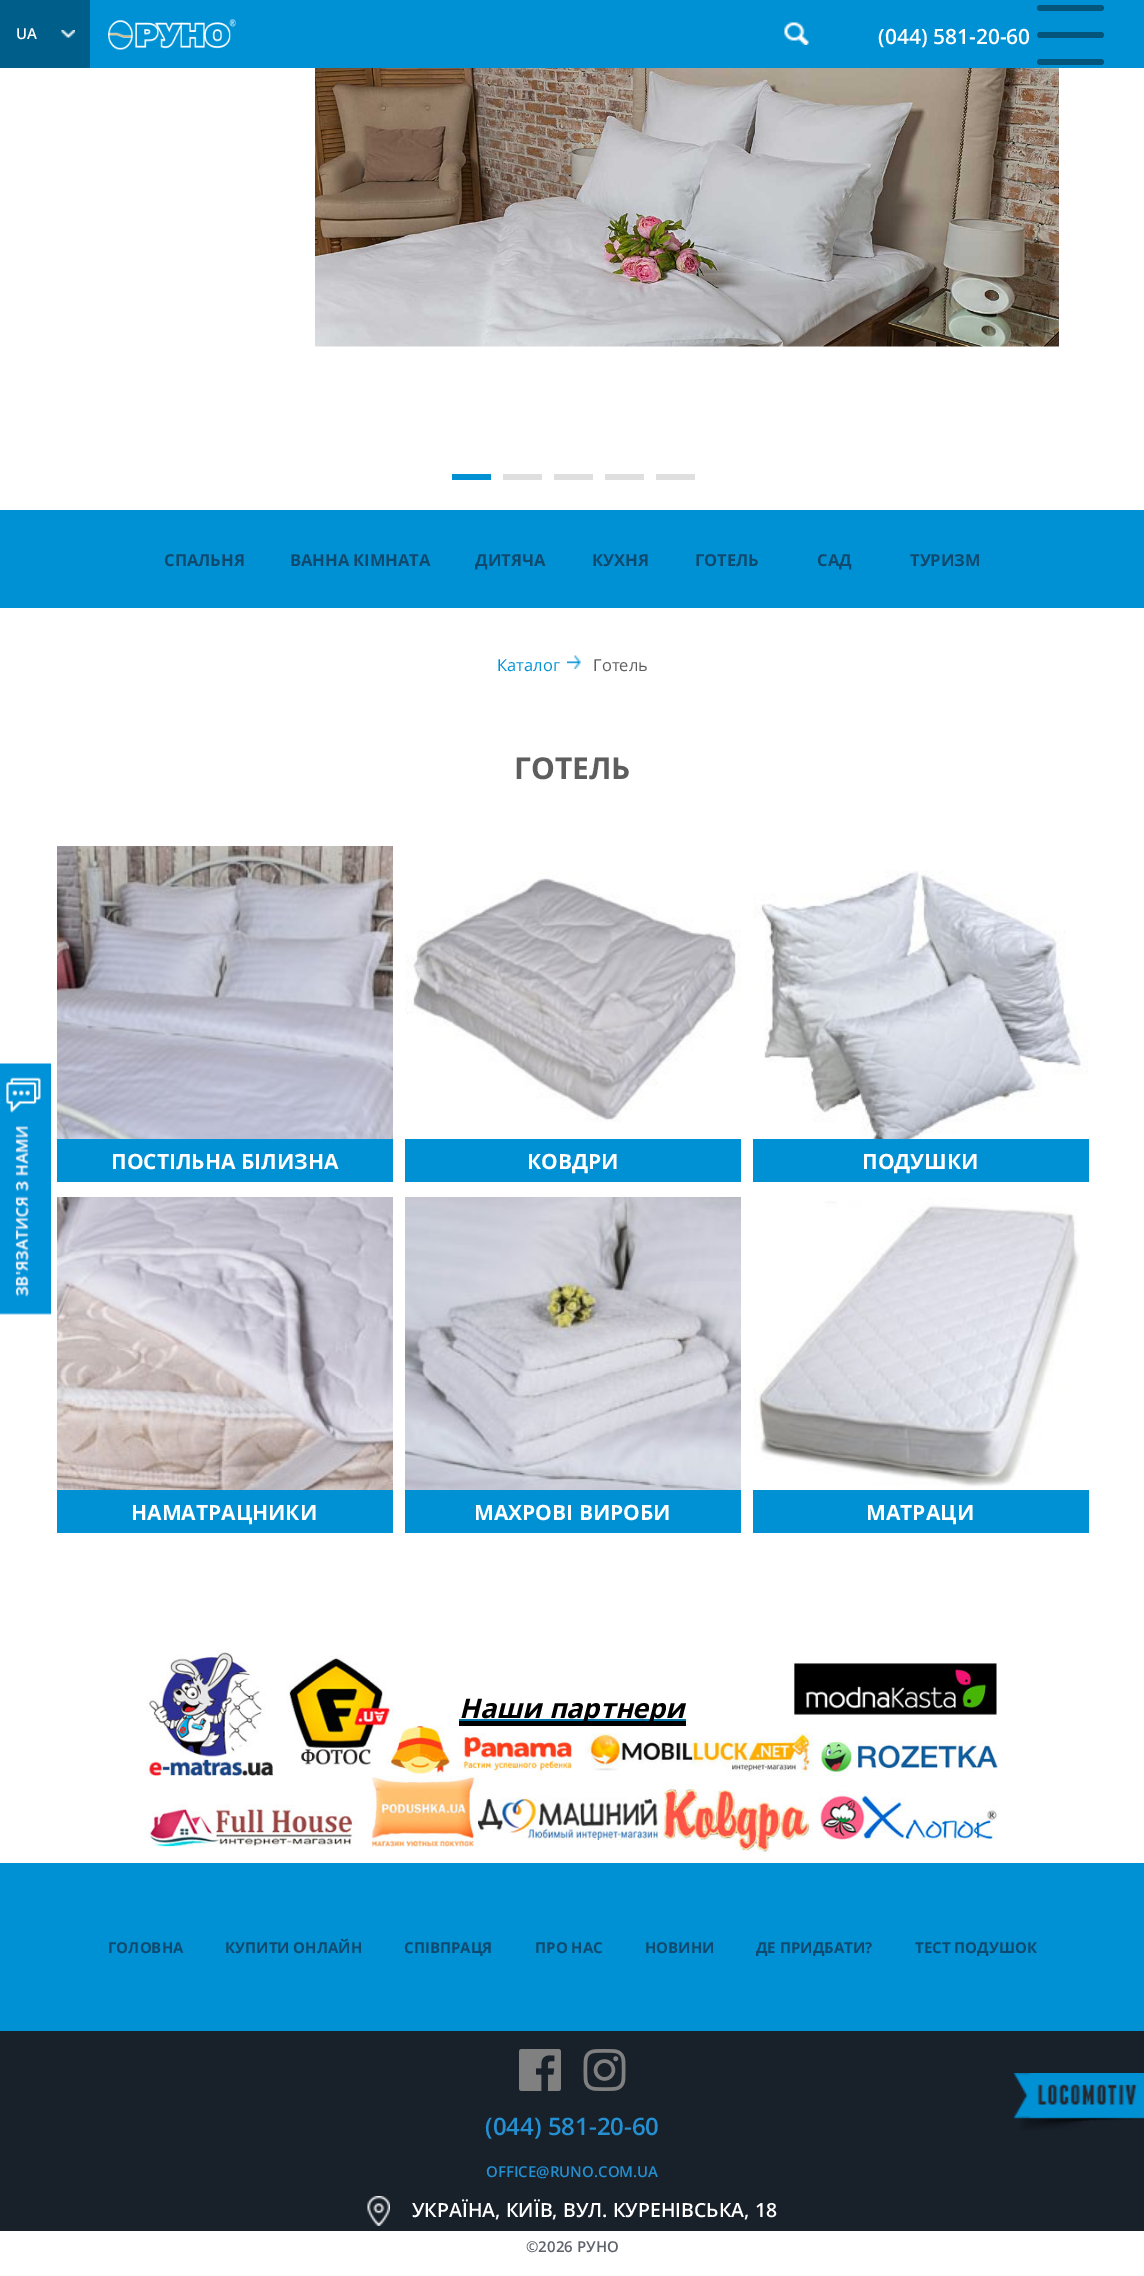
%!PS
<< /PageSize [1144 2276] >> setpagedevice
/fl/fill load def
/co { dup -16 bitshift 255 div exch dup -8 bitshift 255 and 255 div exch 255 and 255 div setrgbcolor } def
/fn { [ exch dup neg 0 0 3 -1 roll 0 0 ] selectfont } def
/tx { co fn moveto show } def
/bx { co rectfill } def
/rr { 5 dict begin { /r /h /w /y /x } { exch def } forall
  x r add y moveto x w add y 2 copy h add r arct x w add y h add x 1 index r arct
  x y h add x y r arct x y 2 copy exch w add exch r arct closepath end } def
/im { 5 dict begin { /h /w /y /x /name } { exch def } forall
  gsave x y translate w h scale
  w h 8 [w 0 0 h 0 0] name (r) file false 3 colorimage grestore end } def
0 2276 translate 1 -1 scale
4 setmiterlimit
0 0 1144 2276 16#FFFFFF bx
90 0 1054 68 16#0091D5 bx
16#03557B co
1037 5 67 6 3 rr fl
1037 32 67 6 3 rr fl
1037 59 67 6 3 rr fl
(media/1.raw) 315 68 744 279 im
452 474 39 6 16#0091D5 bx
503 474 39 6 16#DFDFDF bx
554 474 39 6 16#DFDFDF bx
605 474 39 6 16#DFDFDF bx
656 474 39 6 16#DFDFDF bx
0 0 90 68 16#005E8B bx
(media/2.raw) 61 30 14 8 im
(media/3.raw) 108 19 128 31 im
(media/4.raw) 784 22 25 23 im
0 510 1144 98 16#0091D5 bx
(media/5.raw) 567 655 14 14 im
(media/6.raw) 57 846 336 293 im
57 1139 336 43 16#0091D5 bx
(media/7.raw) 405 870 336 252 im
405 1139 336 43 16#0091D5 bx
(media/8.raw) 753 870 336 269 im
753 1139 336 43 16#0091D5 bx
(media/9.raw) 57 1197 336 293 im
57 1490 336 43 16#0091D5 bx
(media/10.raw) 405 1197 336 293 im
405 1490 336 43 16#0091D5 bx
(media/11.raw) 753 1198 327 289 im
753 1490 336 43 16#0091D5 bx
(media/12.raw) 145 1648 853 206 im
459 1721 227 5 16#000000 bx
459 1719 227 2 16#0073A9 bx
0 2031 1144 200 16#18202A bx
0 1863 1144 168 16#0091D5 bx
(media/13.raw) 1014 2073 130 57 im
(media/14.raw) 519 2049 42 42 im
(media/15.raw) 583 2049 43 42 im
(media/16.raw) 367 2196 23 30 im
(media/17.raw) 0 1063 51 252 im
(UA) 16 39 /OpenSans-SemiBold 15 16#FFFFFF tx
(\(044\) 581-20-60) 878 44 /OpenSans-SemiBold 21 16#FFFFFF tx
(СПАЛЬНЯ) 164 566 /OpenSans-Bold 16.5 16#0F4B70 tx
(ВАННА КІМНАТА) 290 566 /OpenSans-Bold 16.5 16#0F4B70 tx
(ДИТЯЧА) 475 566 /OpenSans-Bold 16.5 16#0F4B70 tx
(КУХНЯ) 592 566 /OpenSans-Bold 16.5 16#0F4B70 tx
(ГОТЕЛЬ) 695 566 /OpenSans-Bold 16.5 16#0F4B70 tx
(САД) 817 566 /OpenSans-Bold 16.5 16#0F4B70 tx
(ТУРИЗМ) 910 566 /OpenSans-Bold 16.5 16#0F4B70 tx
(Каталог) 497 671 /OpenSans-Regular 16.5 16#0091D5 tx
(Готель) 593 671 /OpenSans-Regular 16.5 16#5D5D5D tx
(ГОТЕЛЬ) 514 779 /OpenSans-Bold 30 16#5D5D5D tx
(ПОСТІЛЬНА БІЛИЗНА) 111 1169 /OpenSans-Bold 21 16#FFFFFF tx
(КОВДРИ) 527 1169 /OpenSans-Bold 21 16#FFFFFF tx
(ПОДУШКИ) 862 1169 /OpenSans-Bold 21 16#FFFFFF tx
(НАМАТРАЦНИКИ) 131 1520 /OpenSans-Bold 21 16#FFFFFF tx
(МАХРОВІ ВИРОБИ) 474 1520 /OpenSans-Bold 21 16#FFFFFF tx
(МАТРАЦИ) 866 1520 /OpenSans-Bold 21 16#FFFFFF tx
(Наши партнери) 459 1718 /OpenSans-BoldItalic 27 16#000000 tx
(ГОЛОВНА) 108 1953 /OpenSans-Bold 15 16#0F4B70 tx
(КУПИТИ ОНЛАЙН) 225 1953 /OpenSans-Bold 15 16#0F4B70 tx
(СПІВПРАЦЯ) 404 1953 /OpenSans-Bold 15 16#0F4B70 tx
(ПРО НАС) 535 1953 /OpenSans-Bold 15 16#0F4B70 tx
(НОВИНИ) 645 1953 /OpenSans-Bold 15 16#0F4B70 tx
(ДЕ ПРИДБАТИ?) 756 1953 /OpenSans-Bold 15 16#0F4B70 tx
(ТЕСТ ПОДУШОК) 915 1953 /OpenSans-Bold 15 16#0F4B70 tx
(\(044\) 581-20-60) 485 2135 /OpenSans-SemiBold 24 16#2490D2 tx
(OFFICE@RUNO.COM.UA) 486 2177 /OpenSans-SemiBold 15 16#2490D2 tx
(УКРАЇНА, КИЇВ, ВУЛ. КУРЕНІВСЬКА, 18) 412 2217 /OpenSans-SemiBold 19.5 16#FFFFFF tx
(©2026 РУНО) 526 2252 /OpenSans-SemiBold 15 16#5D626D tx
showpage
